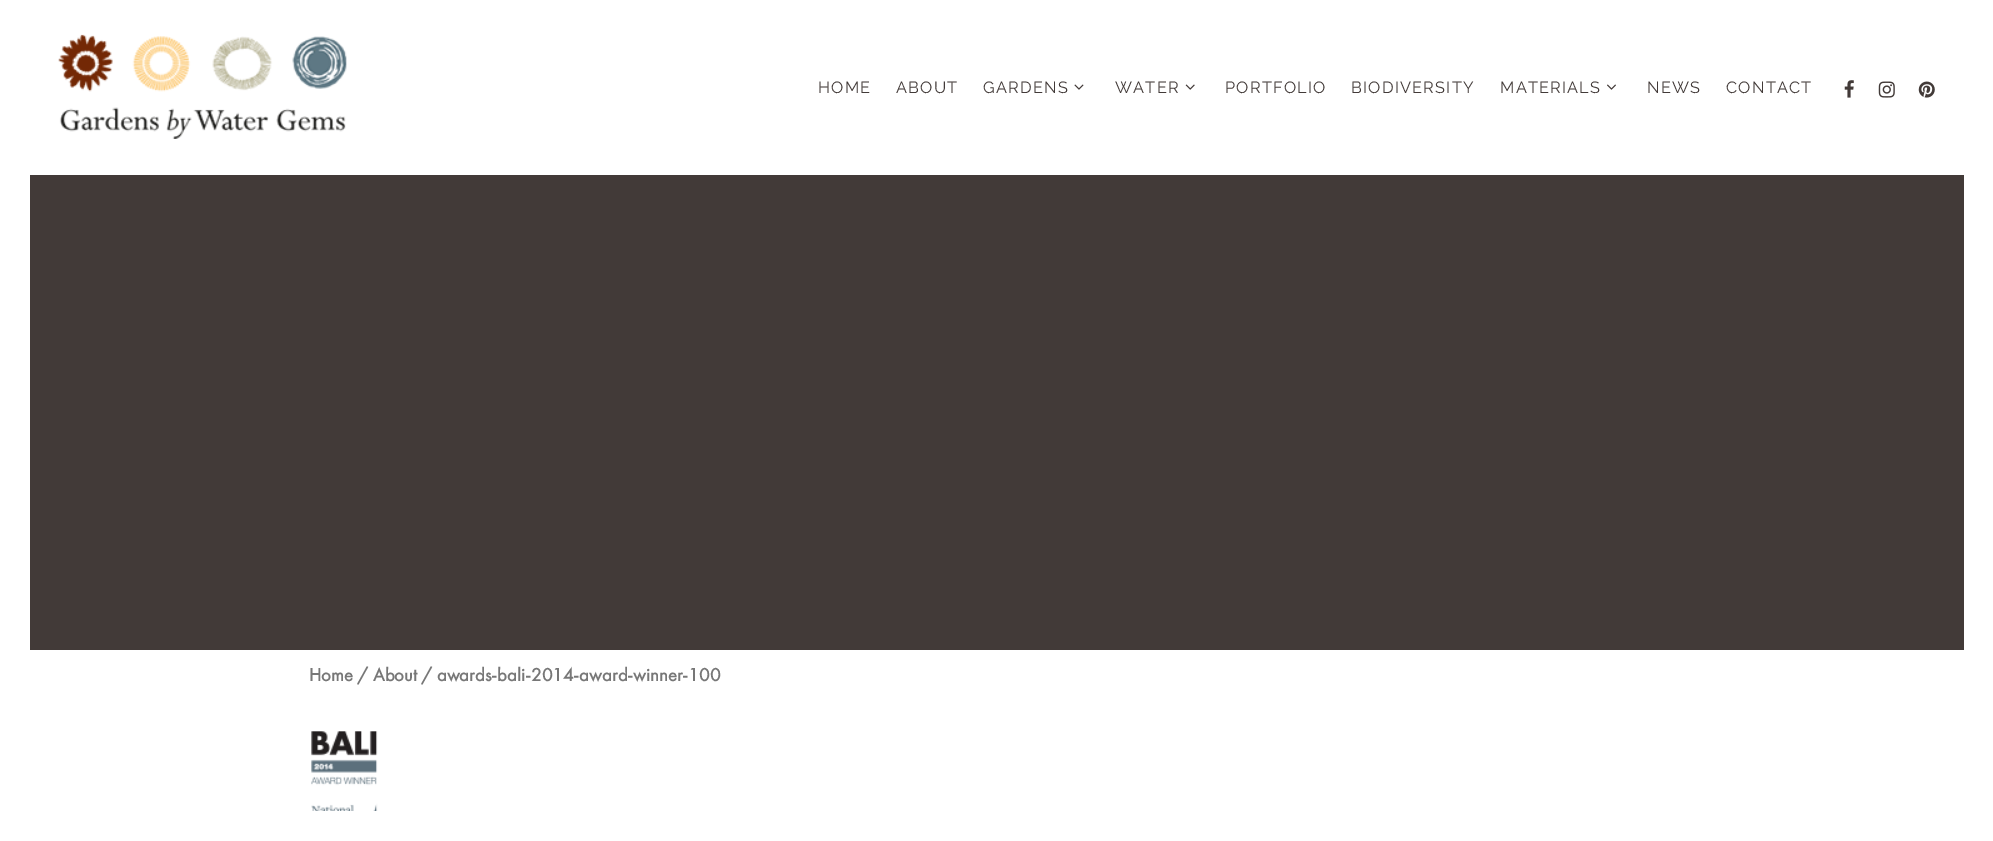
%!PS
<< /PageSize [1993 841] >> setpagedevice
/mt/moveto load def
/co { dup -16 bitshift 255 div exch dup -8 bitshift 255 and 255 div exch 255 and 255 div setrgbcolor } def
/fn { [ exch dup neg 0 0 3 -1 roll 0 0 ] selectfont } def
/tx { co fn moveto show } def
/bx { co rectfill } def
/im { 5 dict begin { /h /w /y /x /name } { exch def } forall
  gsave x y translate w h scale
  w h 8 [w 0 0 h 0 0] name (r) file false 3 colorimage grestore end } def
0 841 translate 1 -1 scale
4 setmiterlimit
0 0 1993 841 16#FFFFFF bx
(media/1.raw) 58 34 289 105 im
(media/2.raw) 1074 84 10 6 im
(media/3.raw) 1185 84 10 6 im
(media/4.raw) 1607 84 9 6 im
(media/5.raw) 1844 80 10 18 im
(media/6.raw) 1878 81 17 17 im
(media/7.raw) 1918 81 17 17 im
30 175 1934 475 16#423A38 bx
(media/8.raw) 311 731 67 80 im
/Raleway-Regular 16.25 fn
818 93 mt 1.25 0 (HOME) ashow
896 93 mt 1.25 0 (ABOUT) ashow
983 93 mt 1.25 0 (GARDENS) ashow
1115 93 mt 1.25 0 (WATER) ashow
1225 93 mt 1.25 0 (PORTFOLIO) ashow
1351 93 mt 1.25 0 (BIODIVERSITY) ashow
1500 93 mt 1.25 0 (MATERIALS) ashow
1647 93 mt 1.25 0 (NEWS) ashow
1726 93 mt 1.25 0 (CONTACT) ashow
(Home / About / awards-bali-2014-award-winner-100) 309 681 /FuturaPT-Bold 18.75 16#777777 tx
showpage
